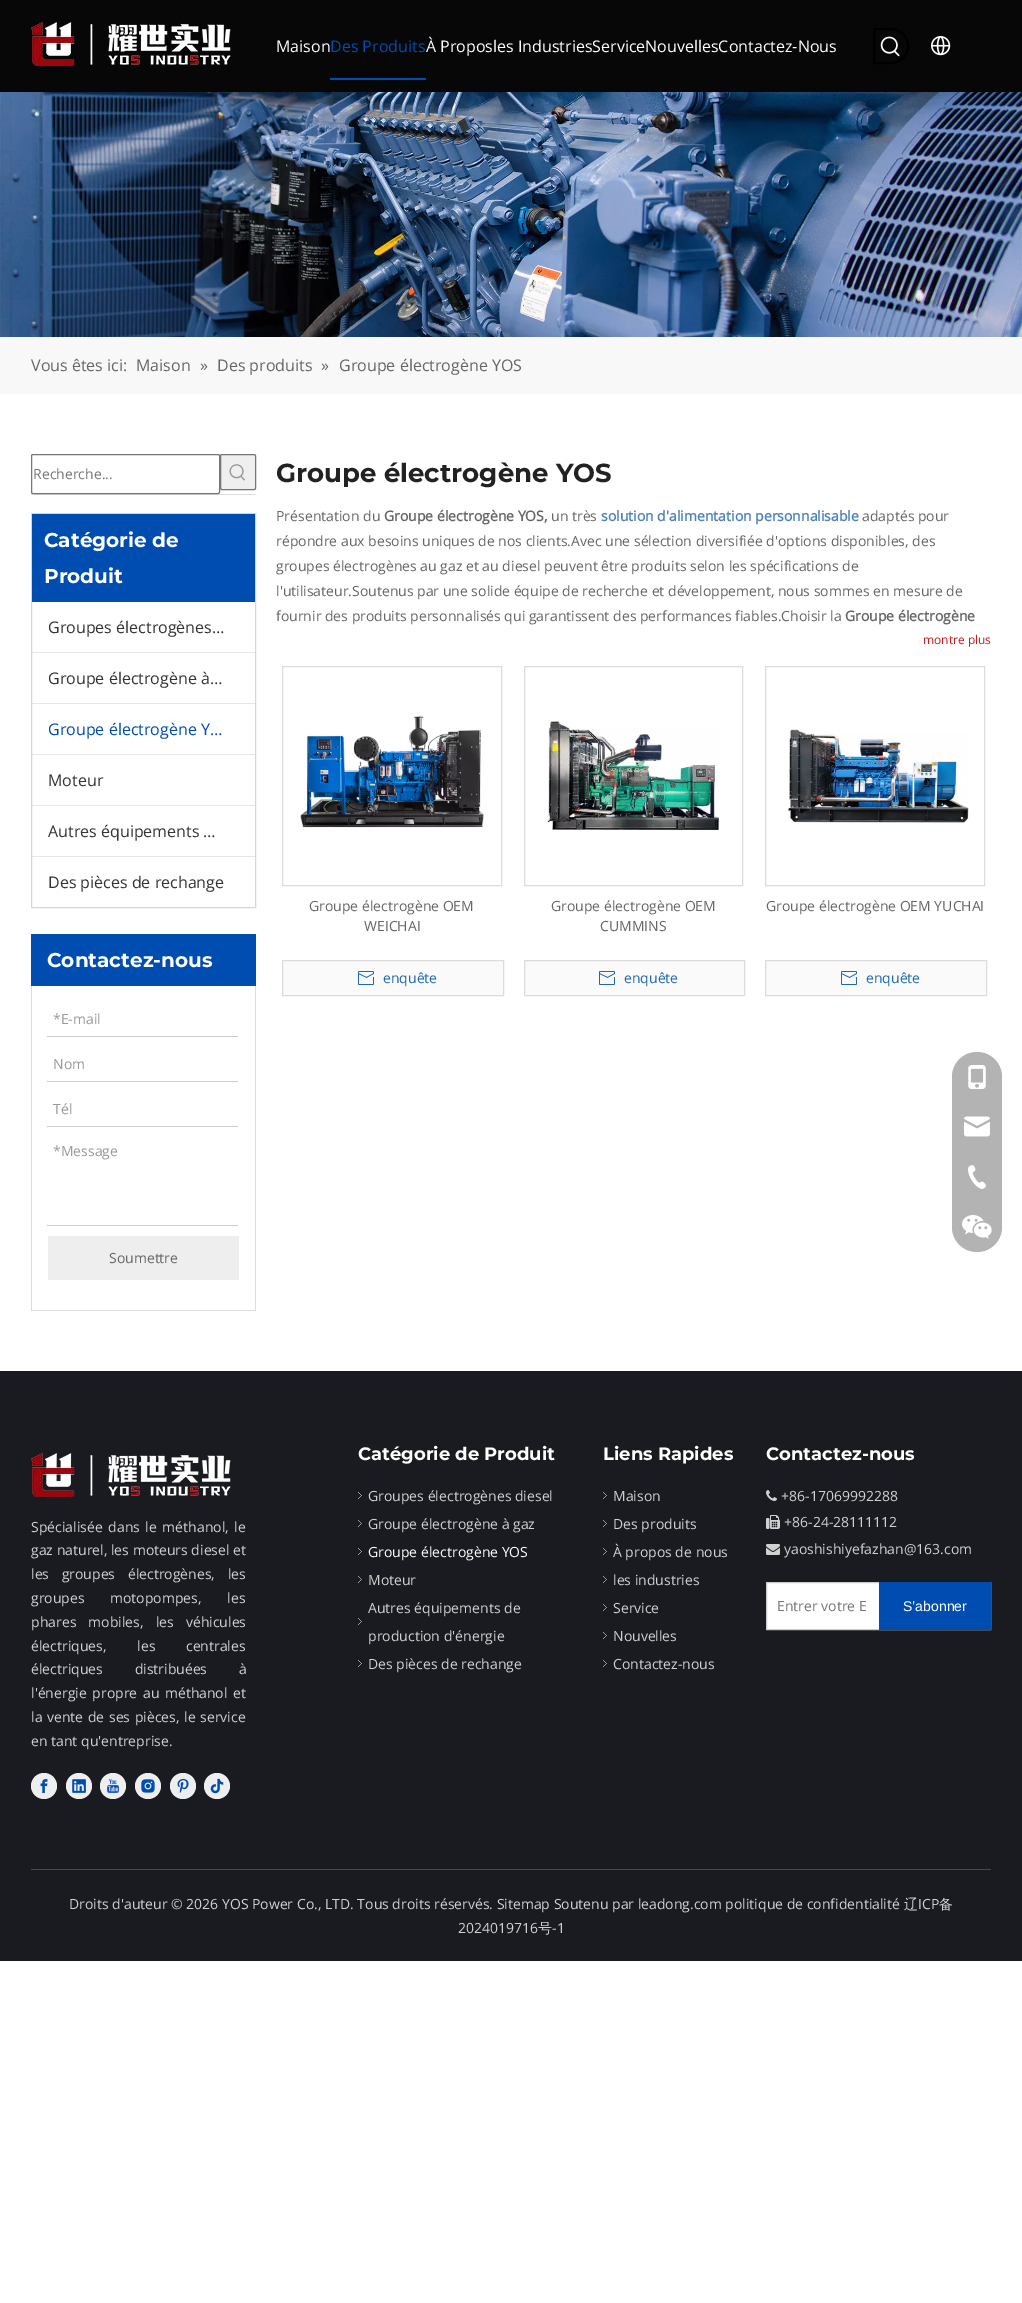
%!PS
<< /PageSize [1022 2303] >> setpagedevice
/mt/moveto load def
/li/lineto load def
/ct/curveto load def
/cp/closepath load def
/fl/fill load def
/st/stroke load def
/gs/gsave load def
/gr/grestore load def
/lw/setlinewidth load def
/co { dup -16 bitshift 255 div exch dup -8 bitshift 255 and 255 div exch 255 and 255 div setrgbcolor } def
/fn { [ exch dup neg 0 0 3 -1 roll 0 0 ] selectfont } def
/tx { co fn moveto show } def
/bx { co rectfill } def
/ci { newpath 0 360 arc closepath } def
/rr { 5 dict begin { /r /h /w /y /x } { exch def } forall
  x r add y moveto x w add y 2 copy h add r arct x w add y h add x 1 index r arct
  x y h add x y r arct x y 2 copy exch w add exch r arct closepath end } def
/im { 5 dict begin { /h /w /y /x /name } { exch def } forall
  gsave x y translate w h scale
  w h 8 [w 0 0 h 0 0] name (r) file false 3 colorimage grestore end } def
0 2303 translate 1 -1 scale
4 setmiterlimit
0 0 1022 2303 16#FFFFFF bx
0 0 1022 92 16#070707 bx
(media/1.raw) 31 22 200 44 im
330 78 96 2 16#004DB2 bx
16#000000 co
2 lw
874 29 mt 891 29 li 900.5 29 908 36.5 908 46 ct 908 55.5 900.5 63 891 63 ct 874 63 li cp st
(media/2.raw) 880 36 20 21 im
(media/3.raw) 931 36 20 20 im
(media/4.raw) 0 92 1022 245 im
0 337 1022 57 16#F8F8F8 bx
31 494 225 1 16#DDDDDD bx
16#767676 co
1 lw
31.5 454.5 188 39 1.5 rr st
16#EFEFEF co
220.5 454.5 35 35 1.5 rr gs fl gr
16#767676 co
st
(media/5.raw) 229 464 16 17 im
16#D6D6D6 co
31.5 513.5 224 394 rectstroke
32 514 223 88 16#004DB2 bx
32 652 223 1 16#E7E7E7 bx
32 703 223 1 16#E7E7E7 bx
32 754 223 1 16#E7E7E7 bx
32 805 223 1 16#E7E7E7 bx
32 856 223 1 16#E7E7E7 bx
31 934 225 52 16#004DB2 bx
255 986 1 325 16#DDDDDD bx
31 1310 225 1 16#DDDDDD bx
31 986 1 325 16#DDDDDD bx
47 1036 191 1 16#CCCCCC bx
47 1081 191 1 16#CCCCCC bx
47 1126 191 1 16#CCCCCC bx
47 1225 191 1 16#CCCCCC bx
48 1236 191 44 16#EEEEEE bx
16#DDDDDD co
282.5 666.5 219 219 rectstroke
(media/6.raw) 300 716 184 112 im
16#FAFAFA co
282.5 960.5 mt 503.5 960.5 li 503.5 995.5 li 282.5 995.5 li cp gs fl gr
16#DCDCDC co
st
(media/7.raw) 358 971 16 14 im
16#DDDDDD co
524.5 666.5 218 219 rectstroke
(media/8.raw) 547 721 172 110 im
16#FAFAFA co
524.5 960.5 mt 744.5 960.5 li 744.5 995.5 li 524.5 995.5 li cp gs fl gr
16#DCDCDC co
st
(media/7.raw) 599 971 16 14 im
16#DDDDDD co
765.5 666.5 219 219 rectstroke
(media/9.raw) 788 729 181 95 im
16#FAFAFA co
765.5 960.5 mt 986.5 960.5 li 986.5 995.5 li 765.5 995.5 li cp gs fl gr
16#DCDCDC co
st
(media/7.raw) 841 971 16 14 im
0 1371 1022 590 16#191B20 bx
16#B3B3B3 co
952 1052 50 200 25 rr fl
(media/10.raw) 968 1065 18 24 im
(media/11.raw) 964 1116 26 21 im
(media/12.raw) 968 1165 18 24 im
(media/13.raw) 962 1215 30 24 im
(media/14.raw) 31 1453 200 44 im
16#EEEEEE co
44 1786 13 ci fl
(media/15.raw) 40 1779 8 14 im
79 1786 13 ci fl
(media/16.raw) 72 1779 14 14 im
113 1786 13 ci fl
(media/17.raw) 107 1779 12 14 im
148 1786 13 ci fl
(media/18.raw) 141 1779 14 14 im
183 1786 13 ci fl
(media/19.raw) 177 1778 12 15 im
217 1786 13 ci fl
(media/20.raw) 210 1778 14 16 im
(media/21.raw) 358 1492 4 7 im
(media/21.raw) 358 1520 4 7 im
(media/21.raw) 358 1548 4 7 im
(media/21.raw) 358 1576 4 7 im
(media/21.raw) 358 1618 4 7 im
(media/21.raw) 358 1660 4 7 im
(media/21.raw) 603 1492 4 7 im
(media/21.raw) 603 1520 4 7 im
(media/21.raw) 603 1548 4 7 im
(media/21.raw) 603 1576 4 7 im
(media/21.raw) 603 1604 4 7 im
(media/21.raw) 603 1632 4 7 im
(media/21.raw) 603 1660 4 7 im
(media/22.raw) 766 1490 11 11 im
(media/23.raw) 766 1515 14 14 im
(media/24.raw) 766 1544 14 11 im
767 1583 112 46 16#FFFFFF bx
16#CCCCCC co
766.5 1582.5 224 47 rectstroke
879 1582 112 48 16#004DB2 bx
31 1869 960 1 16#47494D bx
(Maison) 276 52 /OpenSans-Regular 16 16#FFFFFF tx
(Des Produits) 330 52 /OpenSans-Regular 16 16#004DB2 tx
(À Proposles IndustriesServiceNouvellesContactez-Nous) 426 52 /OpenSans-Regular 16 16#FFFFFF tx
(Vous êtes ici:) 31 371 /OpenSans-Regular 16 16#666666 tx
(Maison) 136 371 /OpenSans-Regular 16 16#666666 tx
(») 200 371 /OpenSans-Regular 16 16#666666 tx
(Des produits) 217 371 /OpenSans-Regular 16 16#666666 tx
(») 321 371 /OpenSans-Regular 16 16#666666 tx
(Groupe électrogène YOS) 339 371 /OpenSans-Regular 16 16#666666 tx
(Recherche...) 33 479 /OpenSans-Regular 14 16#757575 tx
(Catégorie de) 44 547 /Montserrat-Bold 20 16#FFFFFF tx
(Produit) 44 583 /Montserrat-Bold 20 16#FFFFFF tx
(Groupes électrogènes…) 48 633 /OpenSans-Regular 16 16#333333 tx
(Groupe électrogène à…) 48 684 /OpenSans-Regular 16 16#333333 tx
(Groupe électrogène Y…) 48 735 /OpenSans-Regular 16 16#004DB2 tx
(Moteur) 48 786 /OpenSans-Regular 16 16#333333 tx
(Autres équipements …) 48 837 /OpenSans-Regular 16 16#333333 tx
(Des pièces de rechange) 48 888 /OpenSans-Regular 16 16#333333 tx
(Contactez-nous) 47 967 /Montserrat-Bold 20 16#FFFFFF tx
(*E-mail) 53 1024 /OpenSans-Regular 14 16#999999 tx
(Nom) 53 1069 /OpenSans-Regular 14 16#999999 tx
(Tél) 53 1114 /OpenSans-Regular 14 16#999999 tx
(*Message) 53 1156 /OpenSans-Regular 14 16#999999 tx
(Soumettre) 109 1263 /OpenSans-Regular 14 16#666666 tx
(Groupe électrogène YOS) 276 482 /Montserrat-Bold 26 16#222222 tx
(Présentation du) 276 521 /OpenSans-Regular 14 16#666666 tx
(Groupe électrogène YOS,) 384 521 /OpenSans-Bold 14 16#666666 tx
(un très) 551 521 /OpenSans-Regular 14 16#666666 tx
(solution d'alimentation personnalisable) 601 521 /OpenSans-Bold 14 16#4F81BD tx
(adaptés pour) 862 521 /OpenSans-Regular 14 16#666666 tx
(répondre aux besoins uniques de nos clients.Avec une sélection diversifiée d'options disponibles, des) 276 546 /OpenSans-Regular 14 16#666666 tx
(groupes électrogènes au gaz et au diesel peuvent être produits selon les spécifications de) 276 571 /OpenSans-Regular 14 16#666666 tx
(l'utilisateur.Soutenus par une solide équipe de recherche et développement, nous sommes en mesure de) 276 596 /OpenSans-Regular 14 16#666666 tx
(fournir des produits personnalisés qui garantissent des performances fiables.Choisir la) 276 621 /OpenSans-Regular 14 16#666666 tx
(Groupe électrogène) 845 621 /OpenSans-Bold 14 16#666666 tx
(montre plus) 923 644 /OpenSans-Regular 12 16#CD1A1A tx
(Groupe électrogène OEM) 309 911 /OpenSans-Regular 14 16#666666 tx
(WEICHAI) 364 931 /OpenSans-Regular 14 16#666666 tx
(enquête) 383 983 /OpenSans-Regular 14 16#1F69AD tx
(Groupe électrogène OEM) 551 911 /OpenSans-Regular 14 16#666666 tx
(CUMMINS) 600 931 /OpenSans-Regular 14 16#666666 tx
(enquête) 624 983 /OpenSans-Regular 14 16#1F69AD tx
(Groupe électrogène OEM YUCHAI) 766 911 /OpenSans-Regular 14 16#666666 tx
(enquête) 866 983 /OpenSans-Regular 14 16#1F69AD tx
16#D1D1D2 co
31 1532 mt 2 0 32 (Spécialisée dans le méthanol, le) widthshow
(gaz naturel, les moteurs diesel et) 31 1555 /OpenSans-Regular 14 16#D1D1D2 tx
31 1579 mt 9 0 32 (les groupes électrogènes, les) widthshow
31 1603 mt 22 0 32 (groupes motopompes, les) widthshow
31 1627 mt 8.5 0 32 (phares mobiles, les véhicules) widthshow
31 1651 mt 27 0 32 (électriques, les centrales) widthshow
31 1674 mt 28 0 32 (électriques distribuées à) widthshow
31 1698 mt 2 0 32 (l'énergie propre au méthanol et) widthshow
31 1722 mt 1 0 32 (la vente de ses pièces, le service) widthshow
(en tant qu'entreprise.) 31 1746 /OpenSans-Regular 14 16#D1D1D2 tx
(Catégorie de Produit) 358 1460 /Montserrat-Bold 18 16#FFFFFF tx
(Groupes électrogènes diesel) 368 1501 /OpenSans-Regular 14 16#D1D1D2 tx
(Groupe électrogène à gaz) 368 1529 /OpenSans-Regular 14 16#D1D1D2 tx
(Groupe électrogène YOS) 368 1557 /OpenSans-Regular 14 16#FFFFFF tx
(Moteur) 368 1585 /OpenSans-Regular 14 16#D1D1D2 tx
(Autres équipements de) 368 1613 /OpenSans-Regular 14 16#D1D1D2 tx
(production d'énergie) 368 1641 /OpenSans-Regular 14 16#D1D1D2 tx
(Des pièces de rechange) 368 1669 /OpenSans-Regular 14 16#D1D1D2 tx
(Liens Rapides) 603 1460 /Montserrat-Bold 18 16#FFFFFF tx
(Maison) 613 1501 /OpenSans-Regular 14 16#D1D1D2 tx
(Des produits) 613 1529 /OpenSans-Regular 14 16#D1D1D2 tx
(À propos de nous) 613 1557 /OpenSans-Regular 14 16#D1D1D2 tx
(les industries) 613 1585 /OpenSans-Regular 14 16#D1D1D2 tx
(Service) 613 1613 /OpenSans-Regular 14 16#D1D1D2 tx
(Nouvelles) 613 1641 /OpenSans-Regular 14 16#D1D1D2 tx
(Contactez-nous) 613 1669 /OpenSans-Regular 14 16#D1D1D2 tx
(Contactez-nous) 766 1460 /Montserrat-Bold 18 16#FFFFFF tx
(+86-17069992288) 781 1501 /OpenSans-Regular 14 16#D1D1D2 tx
(+86-24-28111112) 784 1527 /OpenSans-Regular 14 16#D1D1D2 tx
(yaoshishiyefazhan@163.com) 784 1554 /OpenSans-Regular 14 16#D1D1D2 tx
(Entrer votre E) 777 1611 /OpenSans-Regular 14 16#757575 tx
(S’abonner) 903 1611 /LiberationSans-Regular 14 16#FFFFFF tx
(Droits d'auteur © 2026 YOS Power Co., LTD. Tous droits réservés. Sitemap Soutenu par leadong.com politique de confidentialité) 69 1909 /OpenSans-Regular 14 16#D1D1D2 tx
(辽) 904 1909 /WenQuanYiZenHei-Medium 14 16#D1D1D2 tx
(ICP) 918 1909 /OpenSans-Regular 14 16#D1D1D2 tx
(备) 939 1909 /WenQuanYiZenHei-Medium 14 16#D1D1D2 tx
(2024019716) 458 1933 /OpenSans-Regular 14 16#D1D1D2 tx
(号) 538 1933 /WenQuanYiZenHei-Medium 14 16#D1D1D2 tx
(-1) 552 1933 /OpenSans-Regular 14 16#D1D1D2 tx
showpage
